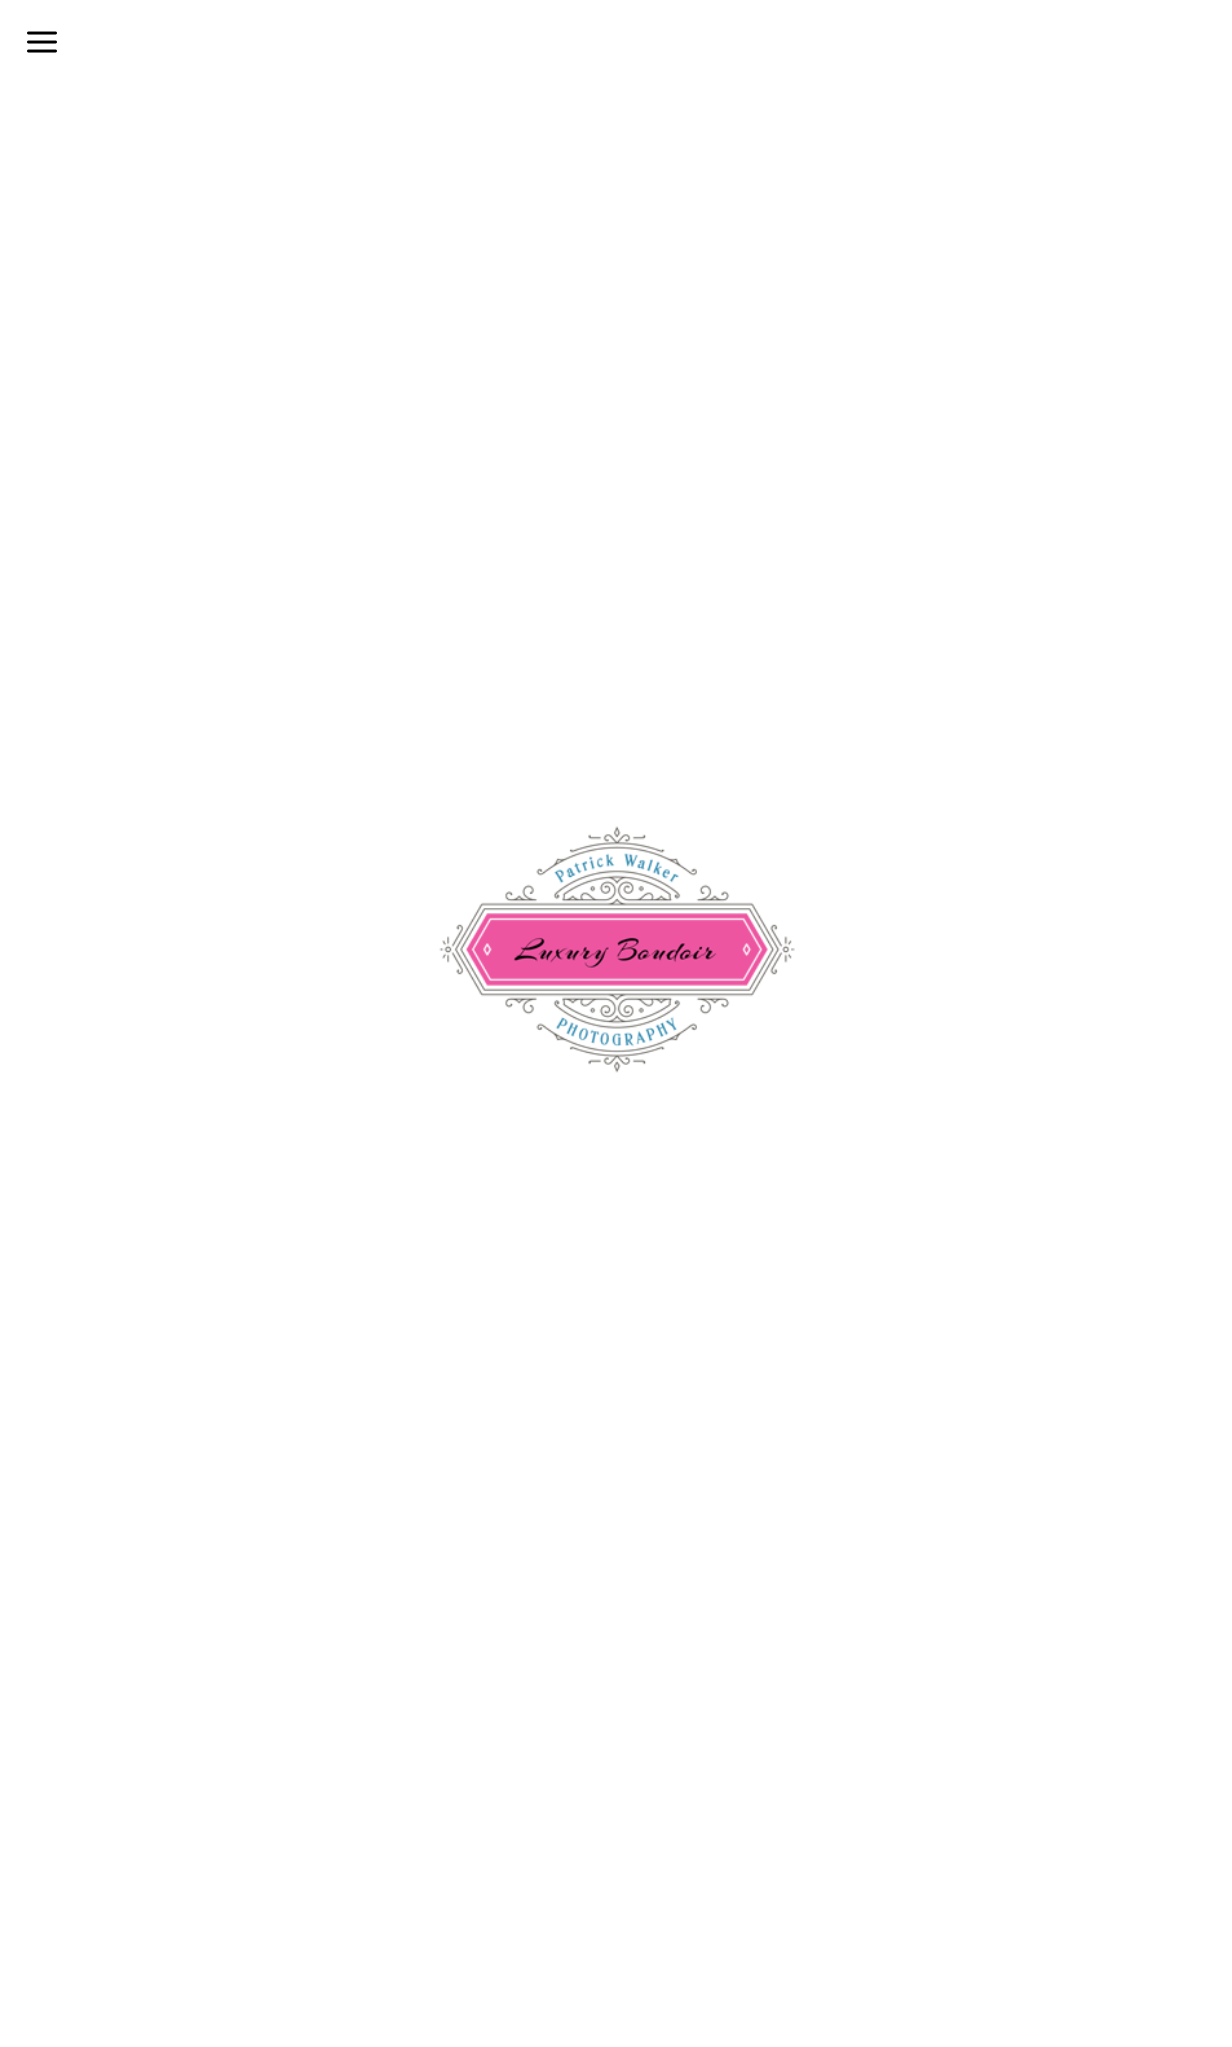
%!PS
<< /PageSize [1232 2047] >> setpagedevice
/co { dup -16 bitshift 255 div exch dup -8 bitshift 255 and 255 div exch 255 and 255 div setrgbcolor } def
/bx { co rectfill } def
/im { 5 dict begin { /h /w /y /x /name } { exch def } forall
  gsave x y translate w h scale
  w h 8 [w 0 0 h 0 0] name (r) file false 3 colorimage grestore end } def
0 2047 translate 1 -1 scale
4 setmiterlimit
0 0 1232 2047 16#FFFFFF bx
(media/1.raw) 27 31 30 22 im
(media/2.raw) 439 826 356 247 im
showpage
